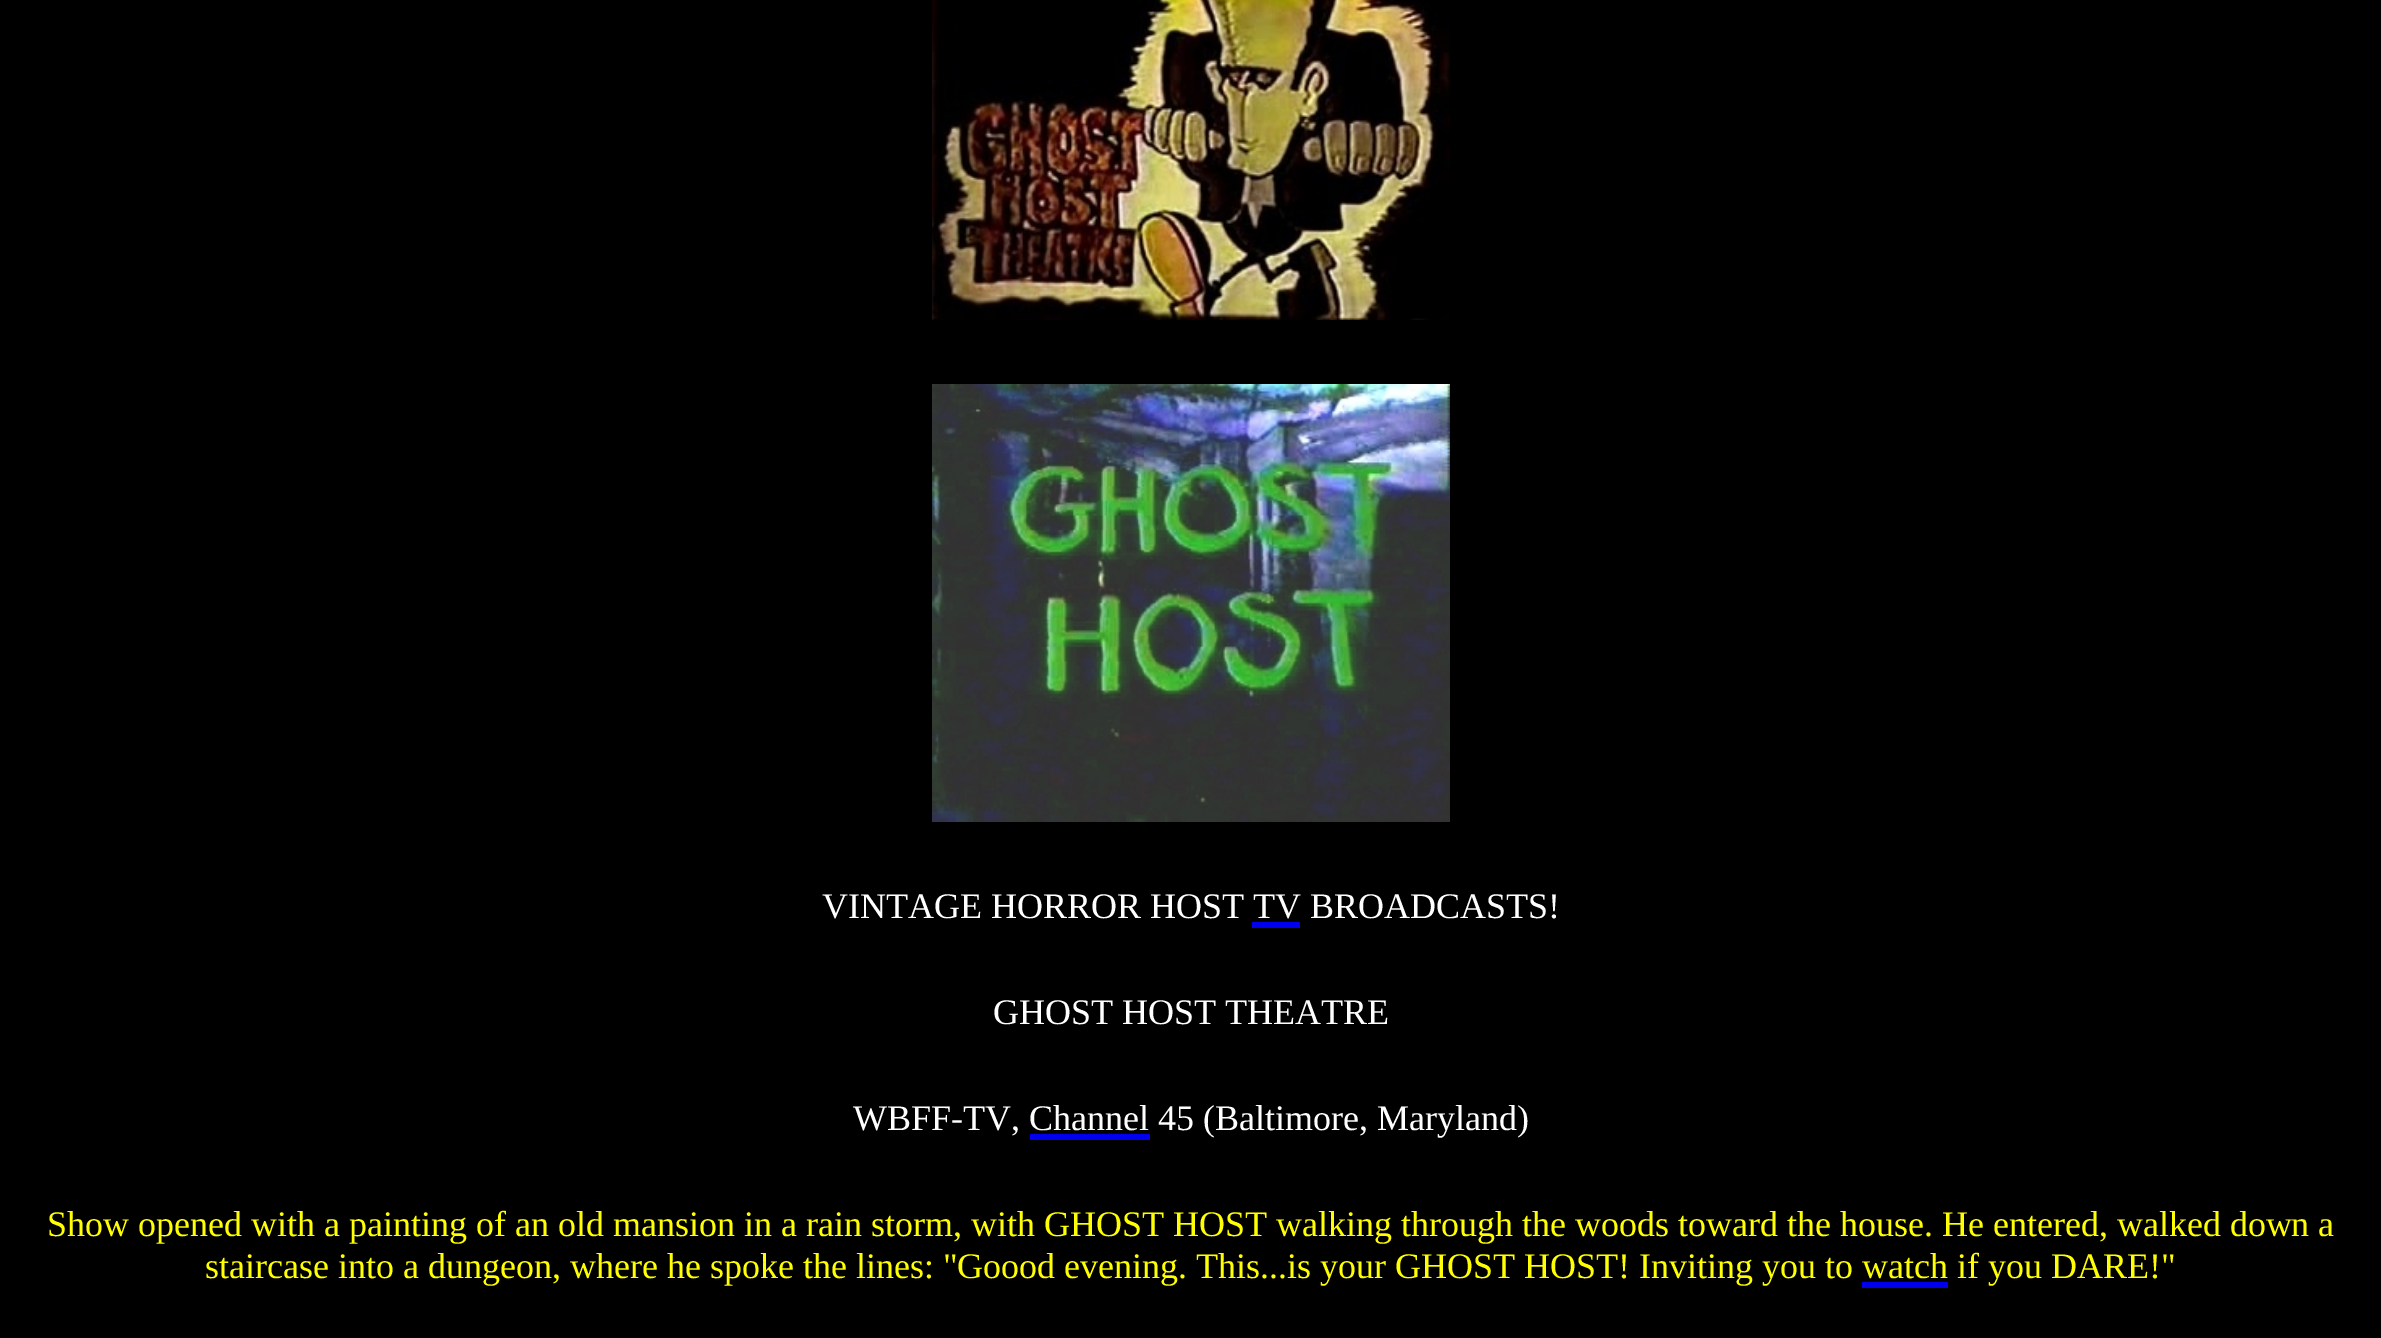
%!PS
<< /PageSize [2381 1338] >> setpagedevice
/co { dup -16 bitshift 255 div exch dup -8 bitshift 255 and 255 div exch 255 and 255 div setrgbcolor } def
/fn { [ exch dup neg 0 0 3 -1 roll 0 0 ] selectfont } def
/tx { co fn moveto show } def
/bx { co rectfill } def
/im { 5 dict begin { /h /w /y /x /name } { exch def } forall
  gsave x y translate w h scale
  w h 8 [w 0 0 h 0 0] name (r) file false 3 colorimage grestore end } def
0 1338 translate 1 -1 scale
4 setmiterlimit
0 0 2381 1338 16#000000 bx
(media/1.raw) 932 0 518 320 im
(media/2.raw) 932 384 518 438 im
1252 922 48 6 16#0000EE bx
(VINTAGE HORROR HOST TV BROADCASTS!) 822 918 /LiberationSerif-Regular 36 16#FFFFFF tx
(GHOST HOST THEATRE) 993 1024 /LiberationSerif-Regular 36 16#FFFFFF tx
(WBFF-TV, Channel 45 \(Baltimore, Maryland\)) 853 1130 /LiberationSerif-Regular 36 16#FFFFFF tx
1030 1134 120 6 16#0000EE bx
(Show opened with a painting of an old mansion in a rain storm, with GHOST HOST walking through the woods toward the house. He entered, walked down a) 47 1236 /LiberationSerif-Regular 36 16#FFFF00 tx
(staircase into a dungeon, where he spoke the lines: "Goood evening. This...is your GHOST HOST! Inviting you to watch if you DARE!") 205 1278 /LiberationSerif-Regular 36 16#FFFF00 tx
1862 1282 86 6 16#0000EE bx
showpage
